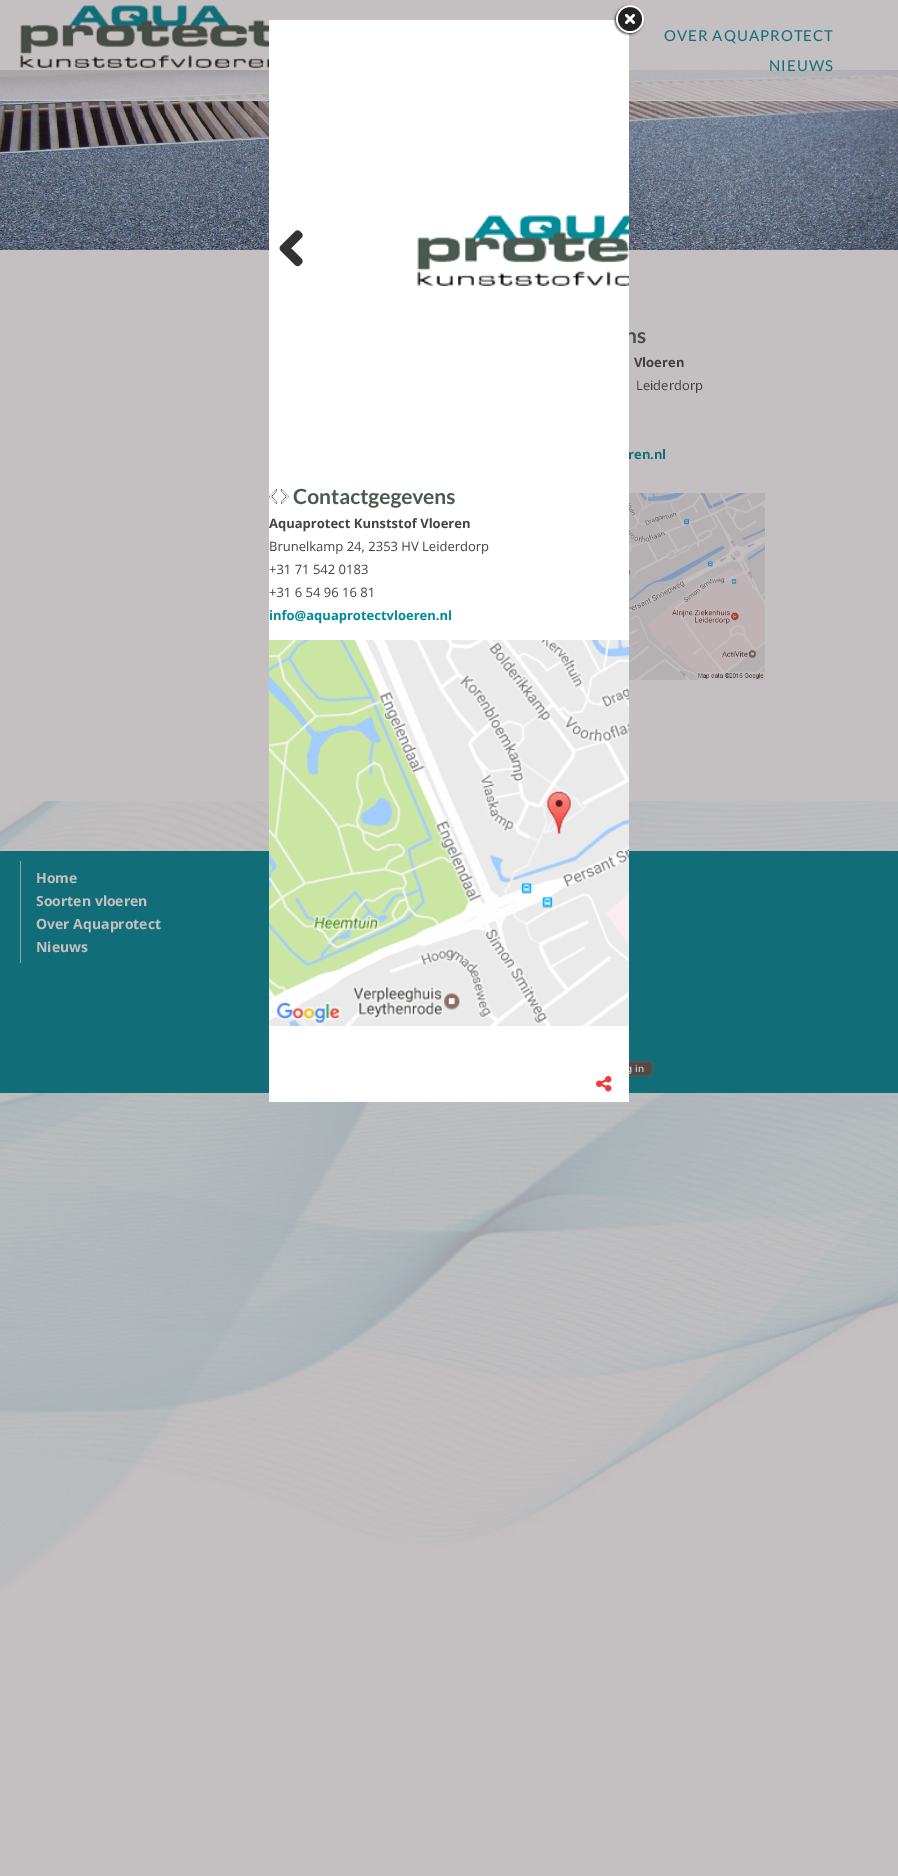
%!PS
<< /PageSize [898 1876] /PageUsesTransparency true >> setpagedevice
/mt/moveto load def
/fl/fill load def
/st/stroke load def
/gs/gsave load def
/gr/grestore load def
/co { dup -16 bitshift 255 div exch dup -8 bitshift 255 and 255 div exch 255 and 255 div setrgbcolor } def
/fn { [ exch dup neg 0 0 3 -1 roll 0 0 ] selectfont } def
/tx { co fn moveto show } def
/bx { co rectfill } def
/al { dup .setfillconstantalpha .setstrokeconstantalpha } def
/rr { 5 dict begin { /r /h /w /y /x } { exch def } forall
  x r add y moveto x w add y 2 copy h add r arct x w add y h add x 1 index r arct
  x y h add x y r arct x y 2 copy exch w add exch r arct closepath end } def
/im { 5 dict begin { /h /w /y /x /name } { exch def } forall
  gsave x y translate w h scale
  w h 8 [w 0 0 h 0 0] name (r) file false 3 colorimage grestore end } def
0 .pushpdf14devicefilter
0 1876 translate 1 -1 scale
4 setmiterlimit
0 0 898 1876 16#C4BFC0 bx
(media/1.raw) 0 801 898 791 im
(media/4.raw) 20 5 249 63 im
(media/5.raw) 0 70 898 180 im
0.8 al
0 70 898 30 16#C4BFC0 bx
1 al
0 100 898 1 16#C4BFC0 bx
(media/6.raw) 629 493 136 187 im
0 851 898 242 16#116E78 bx
20 861 1 102 16#8FA7AA bx
16#504946 co
608.5 1061.5 44 14 4.5 rr gs fl gr
16#5B5451 co
st
/Lato-Regular 15 fn
16#116E78 co
664 41 mt 1 0 (OVER AQUAPROTECT) ashow
769 71 mt 1 0 (NIEUWS) ashow
(ns) 625 343 /Lato-Bold 21 16#464C46 tx
(Vloeren) 634 367 /OpenSans-Bold 13 16#413C3D tx
(Leiderdorp) 636 390 /OpenSans-Regular 13 16#413C3D tx
(ren.nl) 628 459 /OpenSans-Bold 13 16#116E78 tx
(Home) 36 883 /OpenSans-Bold 14 16#C4BFC0 tx
(Soorten vloeren) 36 906 /OpenSans-Bold 14 16#C4BFC0 tx
(Over Aquaprotect) 36 929 /OpenSans-Bold 14 16#C4BFC0 tx
(Nieuws) 36 952 /OpenSans-Bold 14 16#C4BFC0 tx
(g in) 626 1072 /LiberationSans-Bold 10 16#C4BFC0 tx
(media/3.raw) 269 20 360 1082 im
(media/2.raw) 613 4 32 32 im
.poppdf14devicefilter showpage
